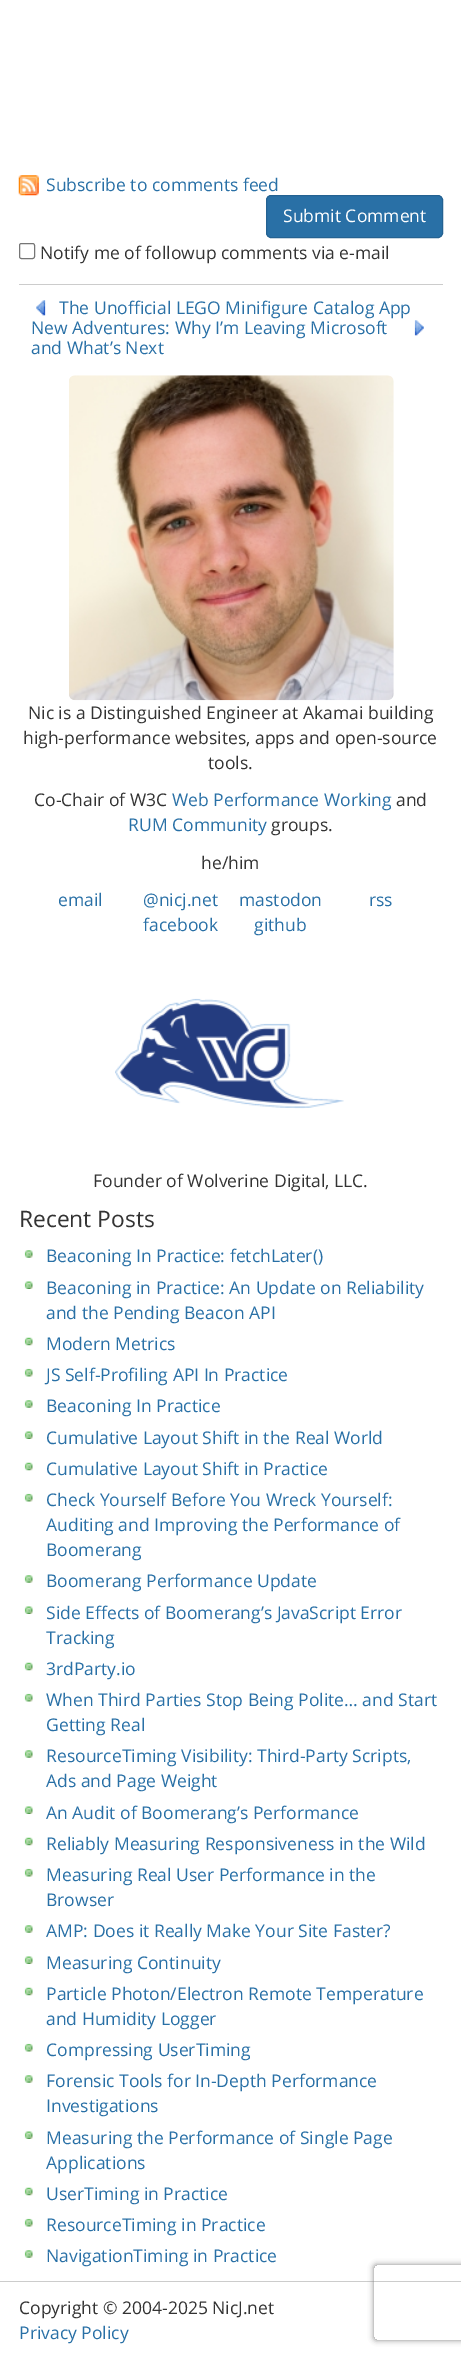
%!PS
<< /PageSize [461 2357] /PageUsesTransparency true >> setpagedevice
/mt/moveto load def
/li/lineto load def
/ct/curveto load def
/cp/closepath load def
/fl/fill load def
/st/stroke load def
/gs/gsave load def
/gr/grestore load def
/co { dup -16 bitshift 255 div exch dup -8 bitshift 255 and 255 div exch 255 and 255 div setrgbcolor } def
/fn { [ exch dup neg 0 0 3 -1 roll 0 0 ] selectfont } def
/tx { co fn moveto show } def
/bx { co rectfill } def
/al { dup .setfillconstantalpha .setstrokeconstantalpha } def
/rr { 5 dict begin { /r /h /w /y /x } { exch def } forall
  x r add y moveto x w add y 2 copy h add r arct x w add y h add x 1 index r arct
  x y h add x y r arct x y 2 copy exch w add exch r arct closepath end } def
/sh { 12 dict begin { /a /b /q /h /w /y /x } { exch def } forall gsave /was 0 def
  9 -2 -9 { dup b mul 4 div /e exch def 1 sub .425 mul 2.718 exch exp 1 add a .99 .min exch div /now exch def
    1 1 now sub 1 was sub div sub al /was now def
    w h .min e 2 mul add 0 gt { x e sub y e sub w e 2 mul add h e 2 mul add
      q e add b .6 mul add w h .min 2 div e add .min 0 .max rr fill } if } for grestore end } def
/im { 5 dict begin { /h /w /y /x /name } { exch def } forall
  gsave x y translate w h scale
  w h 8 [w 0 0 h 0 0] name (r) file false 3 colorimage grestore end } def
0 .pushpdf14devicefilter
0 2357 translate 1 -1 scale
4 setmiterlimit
0 0 461 2357 16#FFFFFF bx
(media/1.raw) 18 175 21 21 im
16#2970A6 co
266.5 195.5 176 42 4.5 rr gs fl gr
16#246292 co
st
16#767676 co
19.5 243.5 15 15 2 rr st
19 284 424 1 16#CCCCCC bx
(media/2.raw) 36 300 10 16 im
(media/3.raw) 414 320 10 16 im
(media/4.raw) 69 375 325 326 im
(media/5.raw) 115 998 229 111 im
(media/6.raw) 24 1250 9 8 im
(media/7.raw) 24 1281 9 8 im
(media/8.raw) 24 1337 9 9 im
(media/9.raw) 24 1368 9 9 im
(media/6.raw) 24 1400 9 8 im
(media/7.raw) 24 1431 9 8 im
(media/8.raw) 24 1462 9 9 im
(media/9.raw) 24 1493 9 9 im
(media/6.raw) 24 1575 9 8 im
(media/7.raw) 24 1606 9 8 im
(media/8.raw) 24 1662 9 9 im
(media/9.raw) 24 1693 9 9 im
(media/6.raw) 24 1750 9 8 im
(media/7.raw) 24 1806 9 8 im
(media/8.raw) 24 1837 9 9 im
(media/9.raw) 24 1868 9 9 im
(media/6.raw) 24 1925 9 8 im
(media/7.raw) 24 1956 9 8 im
(media/8.raw) 24 1987 9 9 im
(media/9.raw) 24 2043 9 9 im
(media/6.raw) 24 2075 9 8 im
(media/7.raw) 24 2131 9 8 im
(media/8.raw) 24 2187 9 9 im
(media/9.raw) 24 2218 9 9 im
(media/6.raw) 24 2250 9 8 im
0 2281 461 1 16#CCCCCC bx
gs
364 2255 mt 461 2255 li 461 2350 li 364 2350 li cp 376.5 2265 mt 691.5 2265 li 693 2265 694 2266 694 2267.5 ct 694 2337.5 li 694 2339 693 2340 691.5 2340 ct 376.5 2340 li 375 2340 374 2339 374 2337.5 ct 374 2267.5 li 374 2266 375 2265 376.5 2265 ct cp eoclip newpath
16#808080 co
374 2265 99 75 2.5 3 1 sh
gr
(Subscribe to comments feed) 46 191 /OpenSans-Regular 17.5 16#2970A6 tx
(Submit Comment) 283 222 /OpenSans-Regular 17.5 16#FFFFFF tx
(Notify me of followup comments via e-mail) 40 259 /OpenSans-Regular 17.5 16#333333 tx
(The Unofficial LEGO Minifigure Catalog App) 59 314 /OpenSans-Regular 17.5 16#2970A6 tx
(New Adventures: Why I’m Leaving Microsoft) 31 334 /OpenSans-Regular 17.5 16#2970A6 tx
(and What’s Next) 31 354 /OpenSans-Regular 17.5 16#2970A6 tx
(Nic is a Distinguished Engineer at Akamai building) 28 719 /OpenSans-Regular 17.5 16#333333 tx
(high-performance websites, apps and open-source) 23 744 /OpenSans-Regular 17.5 16#333333 tx
(tools.) 208 769 /OpenSans-Regular 17.5 16#333333 tx
(Co-Chair of W3C) 34 806 /OpenSans-Regular 17.5 16#333333 tx
(Web Performance Working) 172 806 /OpenSans-Regular 17.5 16#2970A6 tx
(and) 396 806 /OpenSans-Regular 17.5 16#333333 tx
(RUM Community) 128 831 /OpenSans-Regular 17.5 16#2970A6 tx
(groups.) 271 831 /OpenSans-Regular 17.5 16#333333 tx
(he/him) 201 869 /OpenSans-Regular 17.5 16#333333 tx
(email) 58 906 /OpenSans-Regular 17.5 16#2970A6 tx
(@nicj.net) 143 906 /OpenSans-Regular 17.5 16#2970A6 tx
(mastodon) 239 906 /OpenSans-Regular 17.5 16#2970A6 tx
(rss) 369 906 /OpenSans-Regular 17.5 16#2970A6 tx
(facebook) 143 931 /OpenSans-Regular 17.5 16#2970A6 tx
(github) 254 931 /OpenSans-Regular 17.5 16#2970A6 tx
(Founder of Wolverine Digital, LLC.) 93 1187 /OpenSans-Regular 17.5 16#333333 tx
(Recent Posts) 19 1227 /OpenSans-Regular 22.75 16#333333 tx
(Beaconing In Practice: fetchLater\(\)) 46 1262 /OpenSans-Regular 17.5 16#2970A6 tx
(Beaconing in Practice: An Update on Reliability) 46 1294 /OpenSans-Regular 17.5 16#2970A6 tx
(and the Pending Beacon API) 46 1319 /OpenSans-Regular 17.5 16#2970A6 tx
(Modern Metrics) 46 1350 /OpenSans-Regular 17.5 16#2970A6 tx
(JS Self-Profiling API In Practice) 46 1381 /OpenSans-Regular 17.5 16#2970A6 tx
(Beaconing In Practice) 46 1412 /OpenSans-Regular 17.5 16#2970A6 tx
(Cumulative Layout Shift in the Real World) 46 1444 /OpenSans-Regular 17.5 16#2970A6 tx
(Cumulative Layout Shift in Practice) 46 1475 /OpenSans-Regular 17.5 16#2970A6 tx
(Check Yourself Before You Wreck Yourself:) 46 1506 /OpenSans-Regular 17.5 16#2970A6 tx
(Auditing and Improving the Performance of) 46 1531 /OpenSans-Regular 17.5 16#2970A6 tx
(Boomerang) 46 1556 /OpenSans-Regular 17.5 16#2970A6 tx
(Boomerang Performance Update) 46 1587 /OpenSans-Regular 17.5 16#2970A6 tx
(Side Effects of Boomerang’s JavaScript Error) 46 1619 /OpenSans-Regular 17.5 16#2970A6 tx
(Tracking) 46 1644 /OpenSans-Regular 17.5 16#2970A6 tx
(3rdParty.io) 46 1675 /OpenSans-Regular 17.5 16#2970A6 tx
(When Third Parties Stop Being Polite… and Start) 46 1706 /OpenSans-Regular 17.5 16#2970A6 tx
(Getting Real) 46 1731 /OpenSans-Regular 17.5 16#2970A6 tx
(ResourceTiming Visibility: Third-Party Scripts,) 46 1762 /OpenSans-Regular 17.5 16#2970A6 tx
(Ads and Page Weight) 46 1787 /OpenSans-Regular 17.5 16#2970A6 tx
(An Audit of Boomerang’s Performance) 46 1819 /OpenSans-Regular 17.5 16#2970A6 tx
(Reliably Measuring Responsiveness in the Wild) 46 1850 /OpenSans-Regular 17.5 16#2970A6 tx
(Measuring Real User Performance in the) 46 1881 /OpenSans-Regular 17.5 16#2970A6 tx
(Browser) 46 1906 /OpenSans-Regular 17.5 16#2970A6 tx
(AMP: Does it Really Make Your Site Faster?) 46 1937 /OpenSans-Regular 17.5 16#2970A6 tx
(Measuring Continuity) 46 1969 /OpenSans-Regular 17.5 16#2970A6 tx
(Particle Photon/Electron Remote Temperature) 46 2000 /OpenSans-Regular 17.5 16#2970A6 tx
(and Humidity Logger) 46 2025 /OpenSans-Regular 17.5 16#2970A6 tx
(Compressing UserTiming) 46 2056 /OpenSans-Regular 17.5 16#2970A6 tx
(Forensic Tools for In-Depth Performance) 46 2087 /OpenSans-Regular 17.5 16#2970A6 tx
(Investigations) 46 2112 /OpenSans-Regular 17.5 16#2970A6 tx
(Measuring the Performance of Single Page) 46 2144 /OpenSans-Regular 17.5 16#2970A6 tx
(Applications) 46 2169 /OpenSans-Regular 17.5 16#2970A6 tx
(UserTiming in Practice) 46 2200 /OpenSans-Regular 17.5 16#2970A6 tx
(ResourceTiming in Practice) 46 2231 /OpenSans-Regular 17.5 16#2970A6 tx
(NavigationTiming in Practice) 46 2262 /OpenSans-Regular 17.5 16#2970A6 tx
(Copyright © 2004-2025 NicJ.net) 19 2314 /OpenSans-Regular 17.5 16#333333 tx
(Privacy Policy) 19 2339 /OpenSans-Regular 17.5 16#2970A6 tx
.poppdf14devicefilter showpage
